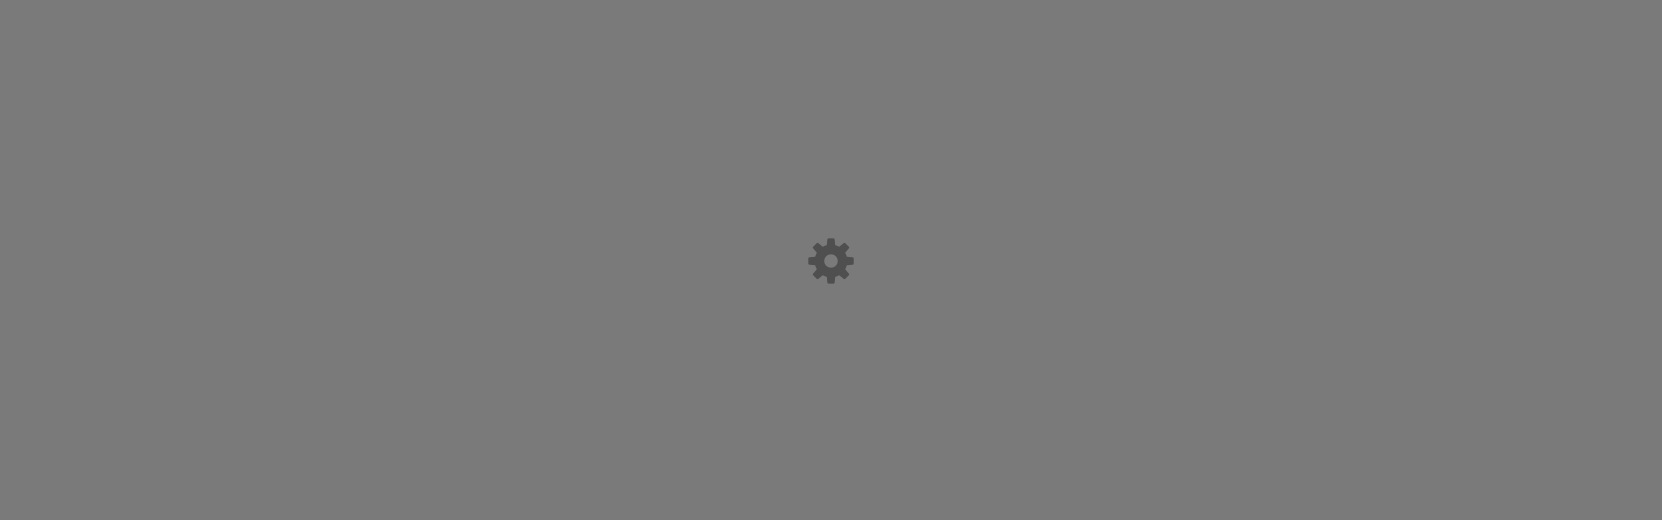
%!PS
<< /PageSize [1662 520] >> setpagedevice
/co { dup -16 bitshift 255 div exch dup -8 bitshift 255 and 255 div exch 255 and 255 div setrgbcolor } def
/bx { co rectfill } def
/im { 5 dict begin { /h /w /y /x /name } { exch def } forall
  gsave x y translate w h scale
  w h 8 [w 0 0 h 0 0] name (r) file false 3 colorimage grestore end } def
0 520 translate 1 -1 scale
4 setmiterlimit
0 0 1662 520 16#7A7A7A bx
(media/1.raw) 808 238 46 46 im
showpage
